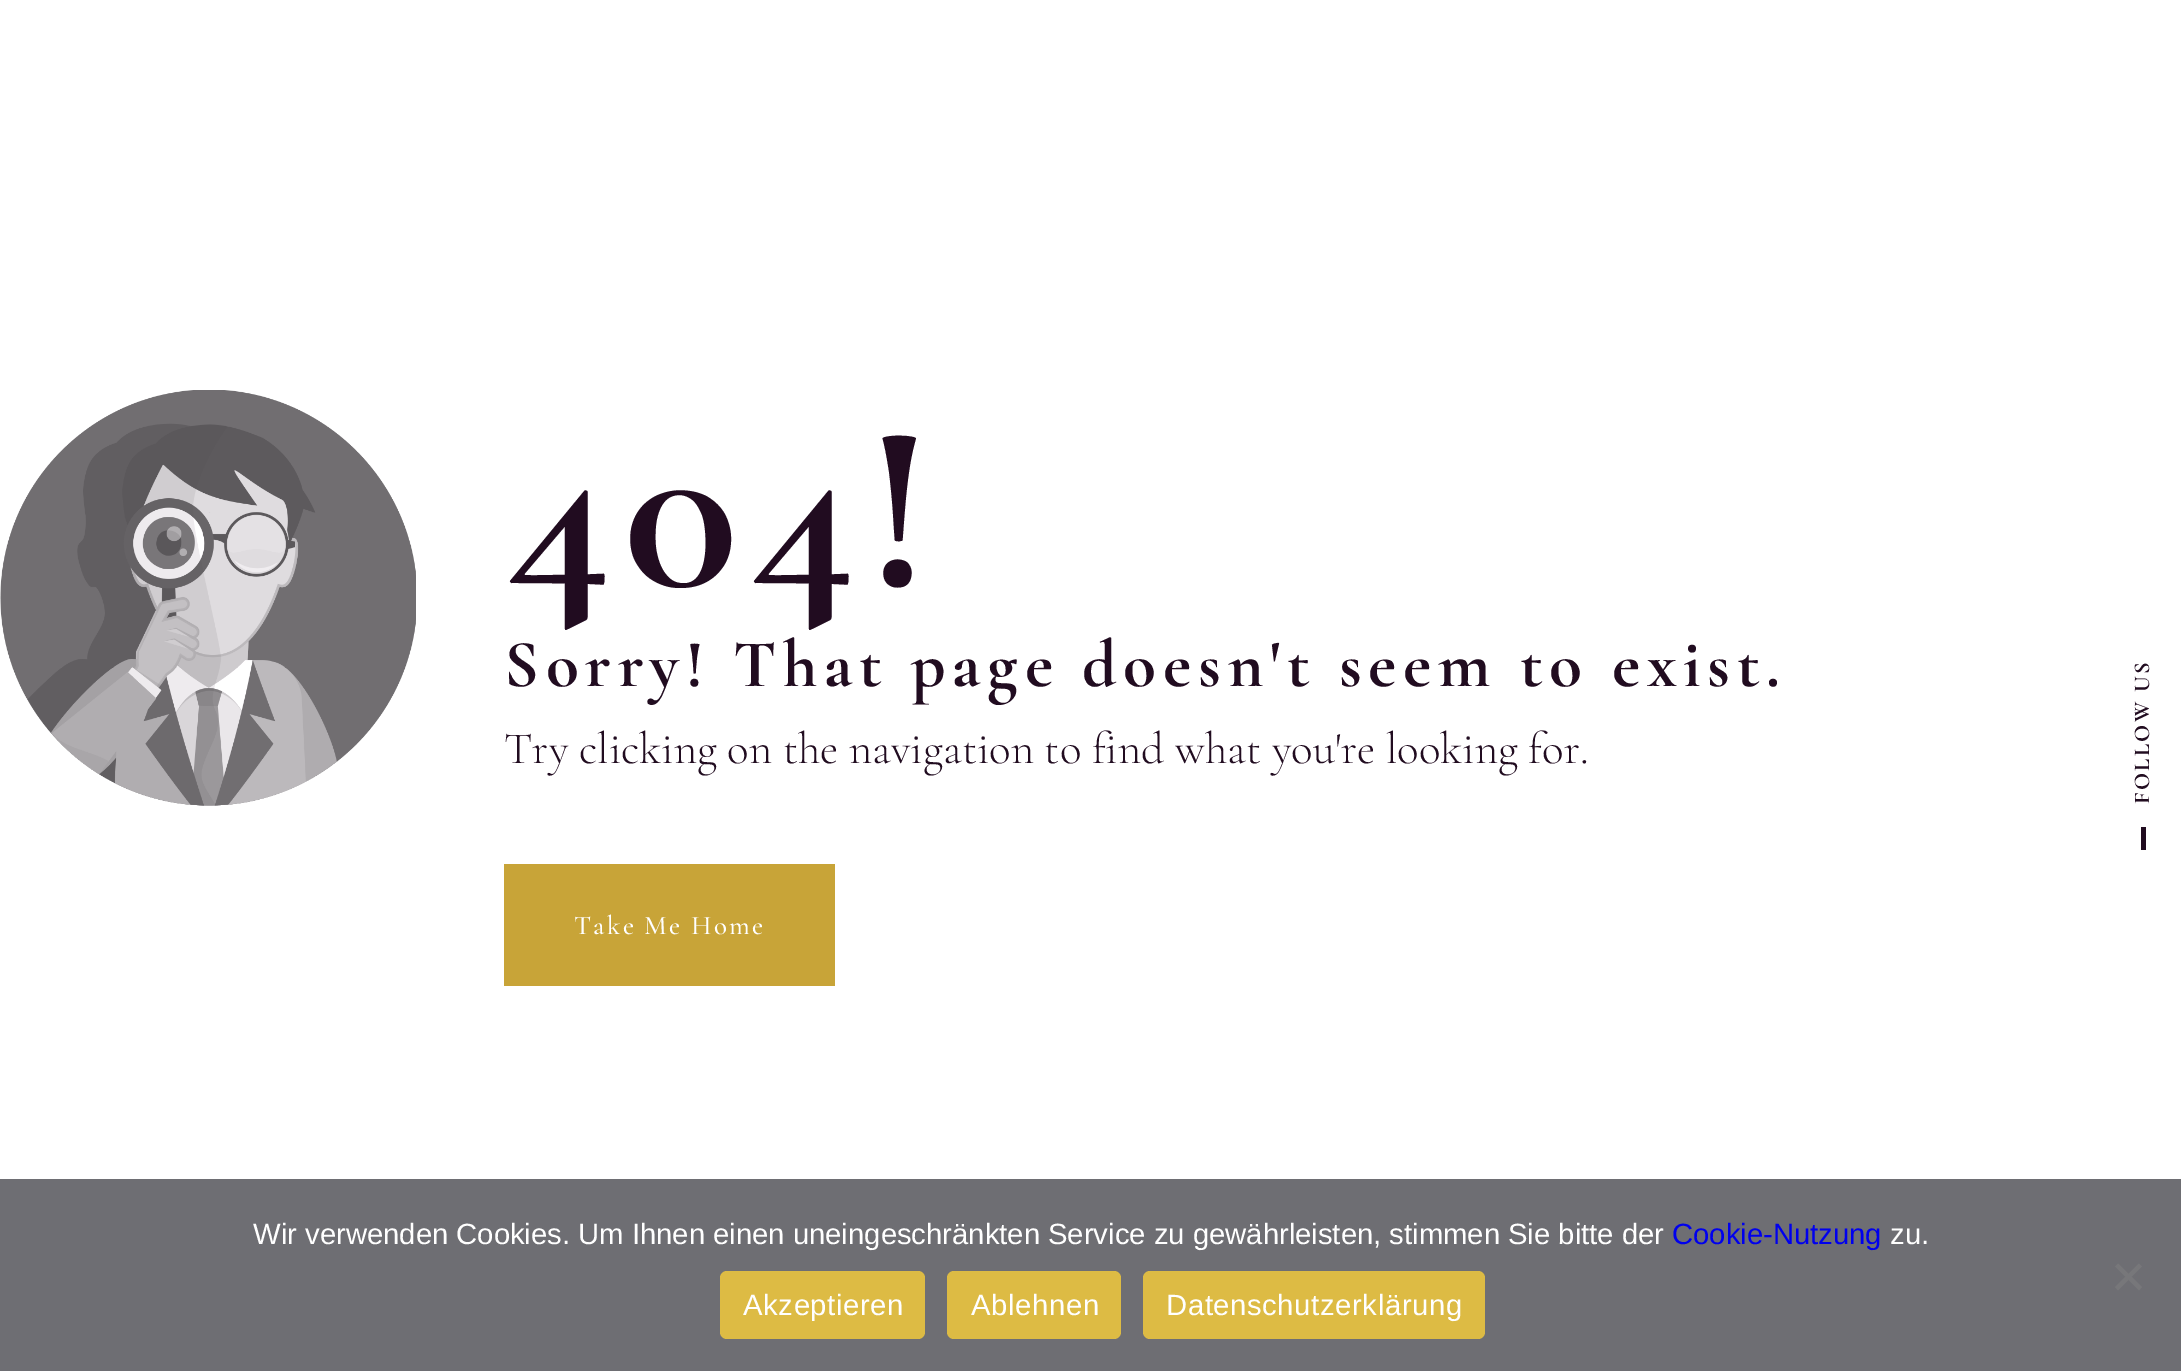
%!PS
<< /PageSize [2181 1371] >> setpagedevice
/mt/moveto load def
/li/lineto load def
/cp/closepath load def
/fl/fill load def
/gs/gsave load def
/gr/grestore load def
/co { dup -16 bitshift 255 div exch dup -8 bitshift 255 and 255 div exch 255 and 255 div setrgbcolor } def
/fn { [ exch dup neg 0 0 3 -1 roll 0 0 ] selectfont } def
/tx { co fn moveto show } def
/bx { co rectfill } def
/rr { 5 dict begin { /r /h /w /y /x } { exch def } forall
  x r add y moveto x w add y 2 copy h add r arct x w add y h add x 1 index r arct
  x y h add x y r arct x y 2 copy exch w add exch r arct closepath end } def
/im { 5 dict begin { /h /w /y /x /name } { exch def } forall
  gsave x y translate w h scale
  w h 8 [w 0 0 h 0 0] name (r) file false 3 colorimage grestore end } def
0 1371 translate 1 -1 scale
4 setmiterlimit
0 0 2181 1371 16#FFFFFF bx
(media/1.raw) 0 390 416 416 im
504 864 331 122 16#C8A438 bx
2141 827 5 23 16#210C20 bx
0 1179 2181 192 16#6E6E73 bx
16#77777A co
2139 1263.5 mt 2142 1266.5 li 2118 1290.5 li 2115 1287 li cp fl
2115 1266.5 mt 2118 1263.5 li 2142 1287 li 2139 1290.5 li cp fl
16#DDBB44 co
720 1271 205 68 7 rr fl
947 1271 174 68 7 rr fl
1143 1271 342 68 7 rr fl
/CormorantGaramond-Bold 238 fn
16#210C20 co
504 585 mt 11 0 (404!) ashow
/CormorantGaramond-Bold 67.5 fn
504 686 mt 6.75 0 (Sorry! That page doesn't seem to exist.) ashow
(Try clicking on the navigation to find what you're looking for.) 504 763 /CormorantGaramond-Light 45 16#210C20 tx
/CormorantGaramond-Medium 27 fn
16#FFFFFF co
574 934 mt 2.25 0 (Take Me Home) ashow
/CormorantGaramond-Bold 22.5 fn
16#210C20 co
gs 2149 804 translate -90 rotate 0 0 mt 2.25 0 (FOLLOW US) ashow gr
(Wir verwenden Cookies. Um Ihnen einen uneingeschränkten Service zu gewährleisten, stimmen Sie bitte der) 253 1244 /LiberationSans-Regular 29.25 16#FFFFFF tx
(Cookie-Nutzung) 1672 1244 /LiberationSans-Regular 29.25 16#0000EE tx
(zu.) 1890 1244 /LiberationSans-Regular 29.25 16#FFFFFF tx
743 1315 mt .6 0 (Akzeptieren) ashow
971 1315 mt .6 0 (Ablehnen) ashow
1166 1315 mt .6 0 (Datenschutzerklärung) ashow
showpage
